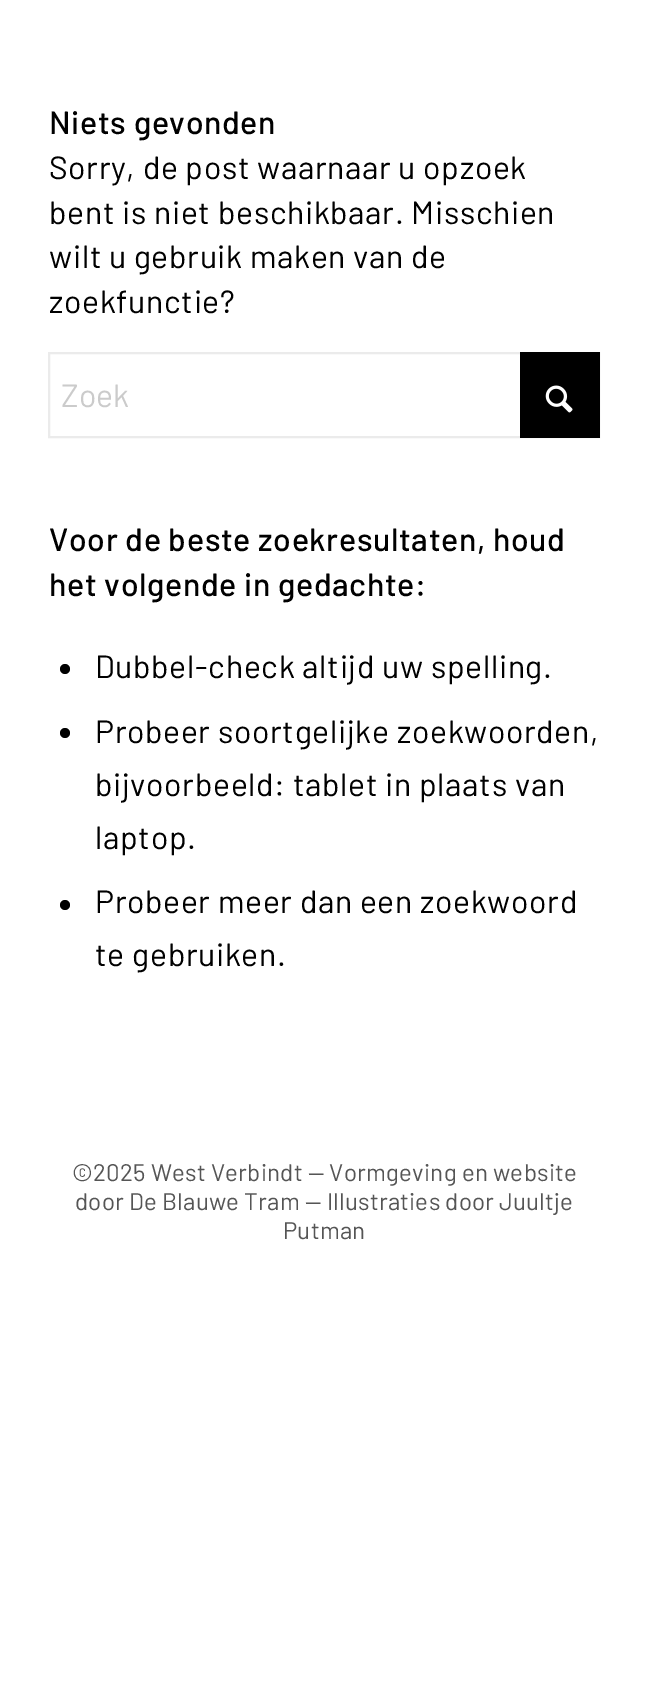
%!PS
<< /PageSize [648 1689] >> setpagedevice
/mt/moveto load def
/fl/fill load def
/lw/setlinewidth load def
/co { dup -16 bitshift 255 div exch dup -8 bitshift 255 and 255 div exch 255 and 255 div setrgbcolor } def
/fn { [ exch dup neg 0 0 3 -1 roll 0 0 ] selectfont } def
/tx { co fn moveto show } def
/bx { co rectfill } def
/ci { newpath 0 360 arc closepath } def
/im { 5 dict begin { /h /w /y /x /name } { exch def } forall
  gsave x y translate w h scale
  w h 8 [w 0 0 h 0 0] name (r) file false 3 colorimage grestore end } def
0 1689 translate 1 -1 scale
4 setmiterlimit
0 0 648 1689 16#FFFFFF bx
16#EBEBEB co
2 lw
49 353 550 84 rectstroke
520 352 80 86 16#000000 bx
(media/1.raw) 545 385 28 28 im
65 669 5 ci fl
65 733 5 ci fl
65 905 5 ci fl
/Barlow-Medium 32 fn
49 134 mt .65 0 (Niets gevonden) ashow
/Barlow-Regular 32 fn
49 179 mt .65 0 (Sorry, de post waarnaar u opzoek) ashow
49 224 mt .65 0 (bent is niet beschikbaar. Misschien) ashow
49 268 mt .65 0 (wilt u gebruik maken van de) ashow
49 313 mt .65 0 (zoekfunctie?) ashow
(Zoek) 61 407 /Barlow-Regular 32 16#CBCBCB tx
/Barlow-Medium 32 fn
16#000000 co
49 551 mt .65 0 (Voor de beste zoekresultaten, houd) ashow
49 596 mt .65 0 (het volgende in gedachte:) ashow
/Barlow-Regular 32 fn
95 678 mt .65 0 (Dubbel-check altijd uw spelling.) ashow
95 743 mt .65 0 (Probeer soortgelijke zoekwoorden,) ashow
95 796 mt .65 0 (bijvoorbeeld: tablet in plaats van) ashow
95 849 mt .65 0 (laptop.) ashow
95 913 mt .65 0 (Probeer meer dan een zoekwoord) ashow
95 966 mt .65 0 (te gebruiken.) ashow
/Barlow-Regular 24 fn
16#555555 co
72 1181 mt .25 0 (©2025 West Verbindt — Vormgeving en website) ashow
75 1210 mt .25 0 (door) ashow
129 1210 mt .25 0 (De Blauwe Tram) ashow
305 1210 mt .25 0 (— Illustraties door) ashow
499 1210 mt .25 0 (Juultje) ashow
283 1239 mt .25 0 (Putman) ashow
showpage
